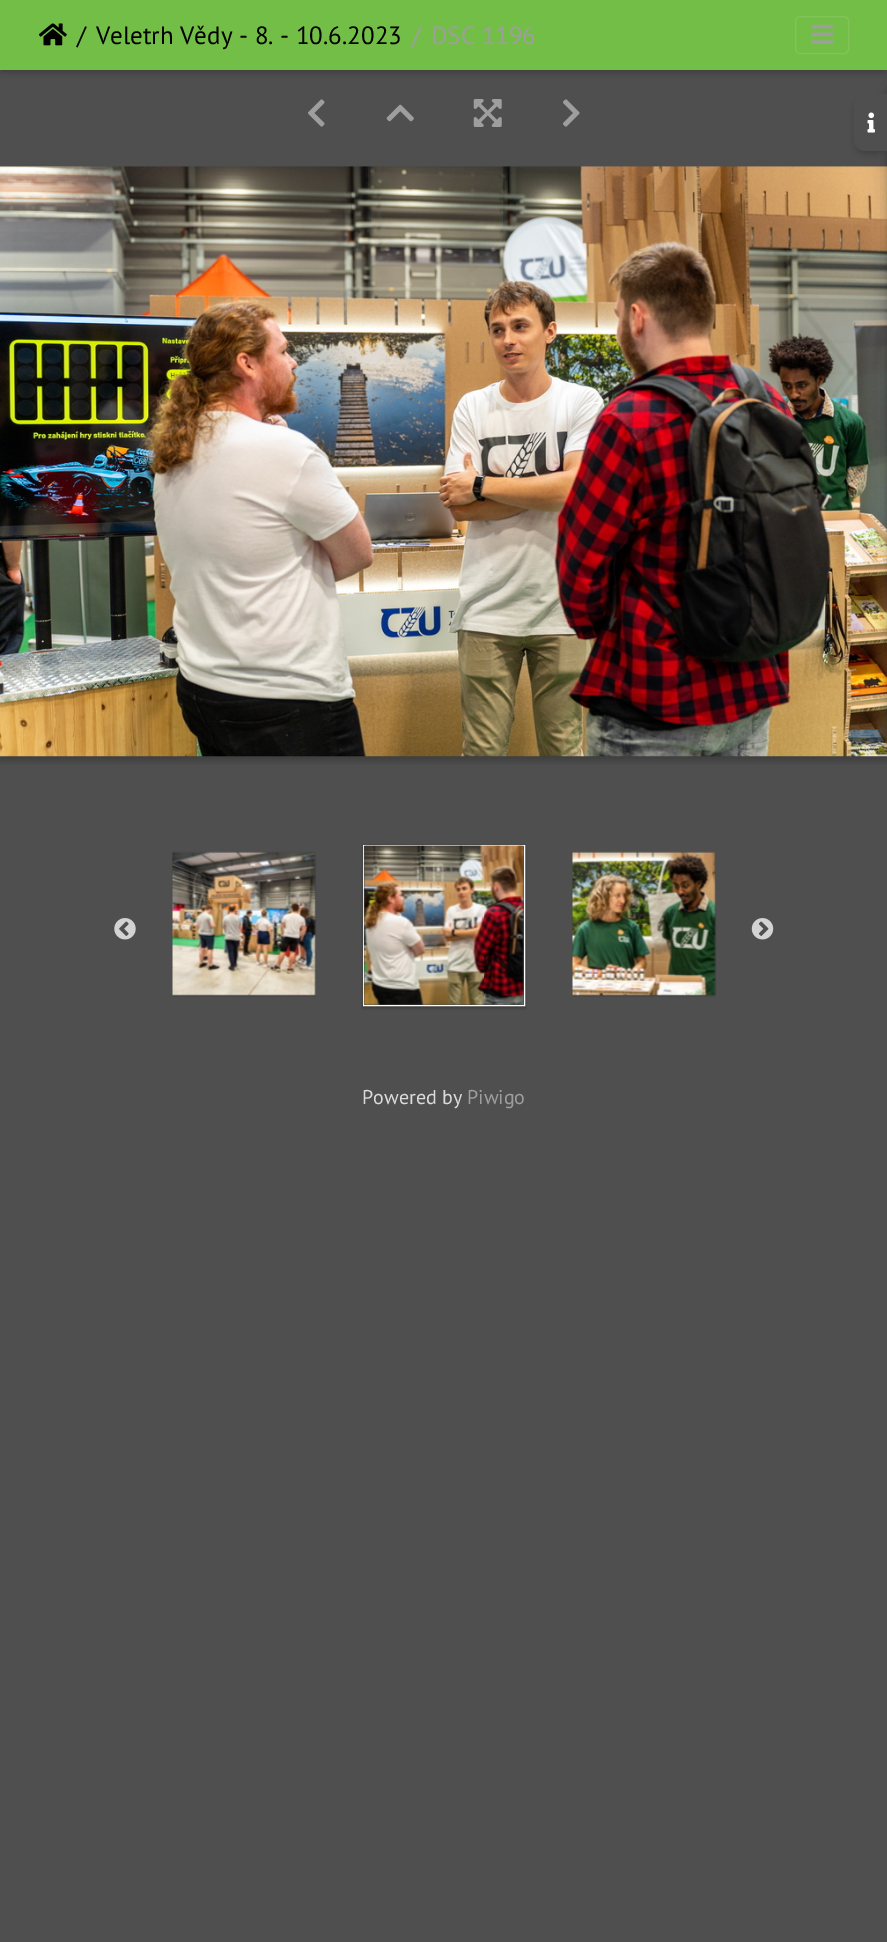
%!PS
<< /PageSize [887 1942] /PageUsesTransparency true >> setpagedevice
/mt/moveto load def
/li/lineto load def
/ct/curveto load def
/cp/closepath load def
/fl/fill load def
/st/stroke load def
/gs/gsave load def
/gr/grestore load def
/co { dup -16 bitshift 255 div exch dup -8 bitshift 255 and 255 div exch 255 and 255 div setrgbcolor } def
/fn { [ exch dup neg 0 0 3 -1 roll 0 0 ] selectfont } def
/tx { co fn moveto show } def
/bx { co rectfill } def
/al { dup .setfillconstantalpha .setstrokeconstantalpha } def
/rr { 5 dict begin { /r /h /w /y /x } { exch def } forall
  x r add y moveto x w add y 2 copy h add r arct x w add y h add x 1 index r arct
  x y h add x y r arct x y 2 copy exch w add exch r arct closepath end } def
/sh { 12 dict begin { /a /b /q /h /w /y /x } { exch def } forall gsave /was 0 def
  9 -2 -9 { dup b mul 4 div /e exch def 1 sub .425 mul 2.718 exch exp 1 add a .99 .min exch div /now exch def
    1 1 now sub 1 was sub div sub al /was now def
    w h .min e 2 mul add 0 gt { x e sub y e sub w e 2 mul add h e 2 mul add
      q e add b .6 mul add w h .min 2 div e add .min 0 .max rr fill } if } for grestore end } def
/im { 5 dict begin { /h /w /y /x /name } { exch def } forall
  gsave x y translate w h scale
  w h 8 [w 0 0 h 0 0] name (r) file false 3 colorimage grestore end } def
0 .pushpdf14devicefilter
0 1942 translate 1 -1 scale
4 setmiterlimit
0 0 887 1942 16#4F4F4F bx
16#000000 co
1 5 885 68 0 3 .2 sh
gs
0 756 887 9 rectclip
0 170 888 590 0 4 .23 sh
gr
(media/8.raw) 0 166 887 591 im
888 83 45 660 13 11 .12 sh
0 0 887 70 16#73BE46 bx
(media/1.raw) 39 23 28 23 im
16#81C559 co
795.5 16.5 53 37 4.5 rr st
(media/2.raw) 811 24 23 20 im
(media/3.raw) 308 99 17 28 im
(media/4.raw) 386 104 28 18 im
(media/5.raw) 473 99 29 28 im
(media/6.raw) 563 99 17 28 im
16#000000 co
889 86 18 658 11 3 .2 sh
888 89 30 660 13 6 .14 sh
855 99 31 55 11 3 .2 sh
16#4F4F4F co
867 94 mt 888 94 li 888 151 li 867 151 li 860 151 854 145 854 138 ct 854 107 li 854 100 860 94 867 94 ct cp fl
866 94 mt 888 94 li 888 151 li 866 151 li 859 151 854 146 854 139 ct 854 106 li 854 99 859 94 866 94 ct cp 866 95 mt 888 95 li 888 150 li 866 150 li 860 150 855 145 855 139 ct 855 106 li 855 100 860 95 866 95 ct cp eofill
(media/7.raw) 867 112 8 21 im
(media/9.raw) 114 918 22 22 im
16#000000 co
173 854 142 142 0 1 .24 sh
(media/10.raw) 172 851 144 145 im
363 846 162 162 0 1.5 .24 sh
16#FFFFFF co
363.5 845.5 161 160 rectstroke
(media/11.raw) 363 844 161 161 im
16#000000 co
573 854 142 142 0 1 .24 sh
(media/12.raw) 572 851 144 145 im
(media/13.raw) 751 918 23 22 im
(/) 77 44 /PTSans-Regular 25 16#000000 tx
(Veletrh Vědy - 8. - 10.6.2023) 96 44 /PTSans-Regular 25 16#000000 tx
(/) 412 44 /PTSans-Regular 25 16#9E9E9E tx
(DSC 1196) 431 44 /PTSans-Regular 25 16#9E9E9E tx
(Powered by) 362 1104 /PTSans-Regular 20 16#DBDBDB tx
(Piwigo) 467 1104 /PTSans-Regular 20 16#9E9E9E tx
.poppdf14devicefilter showpage
